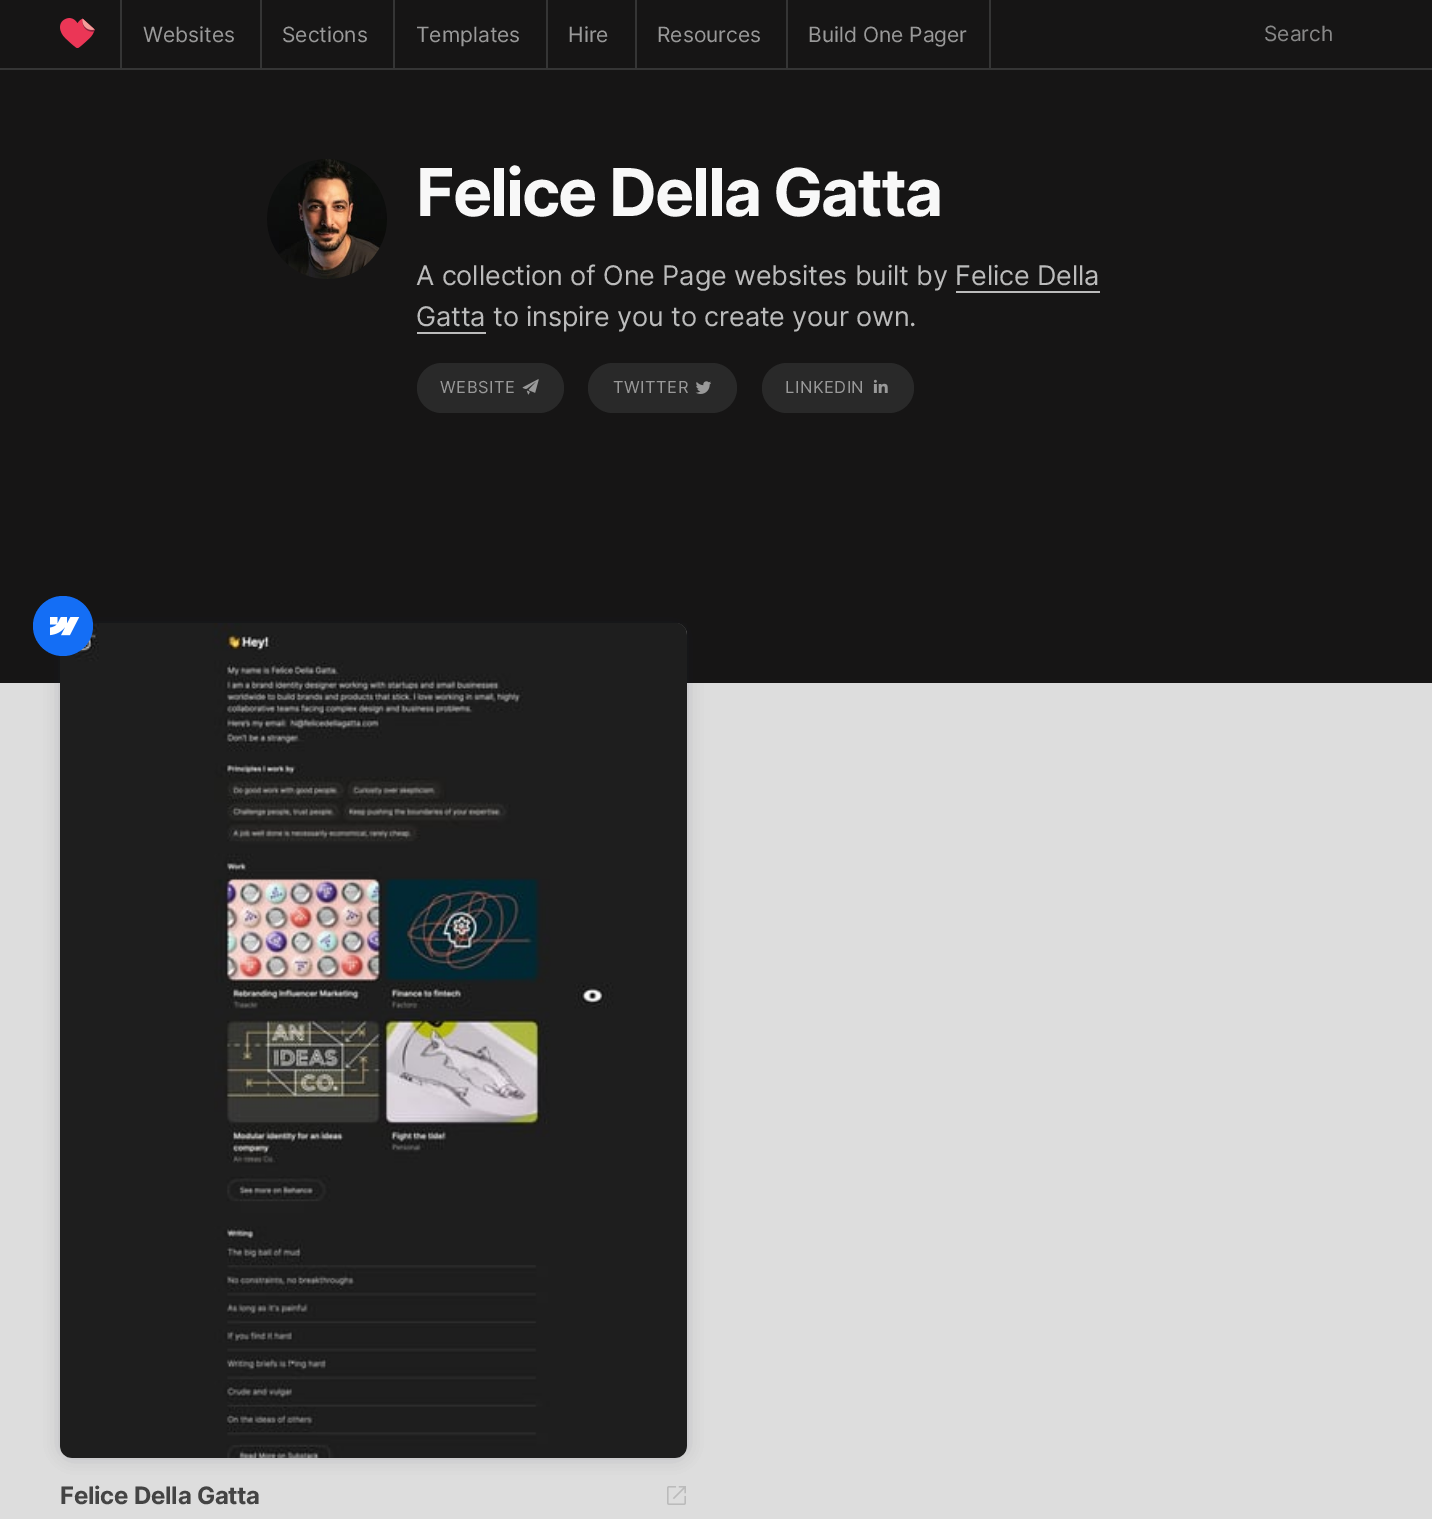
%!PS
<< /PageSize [1432 1519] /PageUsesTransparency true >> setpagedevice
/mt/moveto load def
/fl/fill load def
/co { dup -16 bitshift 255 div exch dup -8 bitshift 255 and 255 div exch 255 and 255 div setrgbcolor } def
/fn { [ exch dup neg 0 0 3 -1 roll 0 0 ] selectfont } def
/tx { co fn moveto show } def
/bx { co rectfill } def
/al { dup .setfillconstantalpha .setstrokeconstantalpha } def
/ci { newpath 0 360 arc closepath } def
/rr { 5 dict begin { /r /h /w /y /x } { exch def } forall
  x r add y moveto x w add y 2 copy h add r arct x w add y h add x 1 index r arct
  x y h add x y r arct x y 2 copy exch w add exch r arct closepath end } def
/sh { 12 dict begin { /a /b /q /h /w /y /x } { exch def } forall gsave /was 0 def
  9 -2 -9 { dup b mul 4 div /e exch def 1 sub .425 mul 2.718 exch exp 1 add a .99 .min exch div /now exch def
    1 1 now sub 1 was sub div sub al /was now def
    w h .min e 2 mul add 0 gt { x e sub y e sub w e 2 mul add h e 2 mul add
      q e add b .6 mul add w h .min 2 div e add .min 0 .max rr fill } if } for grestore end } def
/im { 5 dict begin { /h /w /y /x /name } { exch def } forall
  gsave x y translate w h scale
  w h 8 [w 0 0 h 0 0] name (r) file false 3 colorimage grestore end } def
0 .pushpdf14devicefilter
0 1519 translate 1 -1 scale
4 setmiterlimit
0 0 1432 1519 16#DDDDDD bx
0 0 1432 68 16#161515 bx
0 68 1432 2 16#353535 bx
(media/1.raw) 60 18 35 30 im
120 0 2 69 16#353535 bx
260 0 2 69 16#353535 bx
393 0 2 69 16#353535 bx
546 0 2 69 16#353535 bx
635 0 2 69 16#353535 bx
989 0 2 69 16#353535 bx
786 0 2 69 16#353535 bx
0 70 1432 613 16#161515 bx
(media/2.raw) 267 159 120 120 im
956 291 144 2 16#BBBBBB bx
417 332 69 2 16#BBBBBB bx
16#292929 co
417 363 147 50 25 rr fl
(media/3.raw) 522 379 17 16 im
588 363 149 50 25 rr fl
(media/4.raw) 695 381 16 13 im
762 363 152 50 25 rr fl
(media/5.raw) 873 379 15 14 im
16#273141 co
60 623 627 835 12 7.5 .1 sh
60 623 627 835 12 7.5 .1 sh
(media/7.raw) 60 623 627 835 im
16#146EF5 co
63 626 30 ci fl
(media/6.raw) 50 617 30 19 im
(media/8.raw) 667 1486 19 19 im
(Websites) 143 42 /Inter-Regular 21 16#999999 tx
(Sections) 282 42 /Inter-Regular 21 16#999999 tx
(Templates) 416 42 /Inter-Regular 21 16#999999 tx
(Hire) 568 42 /Inter-Regular 21 16#999999 tx
(Resources) 657 42 /Inter-Regular 21 16#999999 tx
(Build One Pager) 808 42 /Inter-Regular 21 16#999999 tx
(Search) 1264 41 /Inter-Regular 21 16#888888 tx
/Inter-Bold 66 fn
16#F8F8F8 co
416 216 mt -2.1 0 (Felice Della Gatta) ashow
/Inter-Regular 27 fn
16#BBBBBB co
416 285 mt -.15 0 (A collection of One Page websites built by Felice Della) ashow
416 326 mt -.15 0 (Gatta to inspire you to create your own.) ashow
/Inter-Regular 16.5 fn
16#999999 co
440 393 mt .5 0 (WEBSITE) ashow
613 393 mt .5 0 (TWITTER) ashow
785 393 mt .5 0 (LINKEDIN) ashow
/Inter-Bold 24 fn
16#444444 co
60 1504 mt -.25 0 (Felice Della Gatta) ashow
.poppdf14devicefilter showpage
